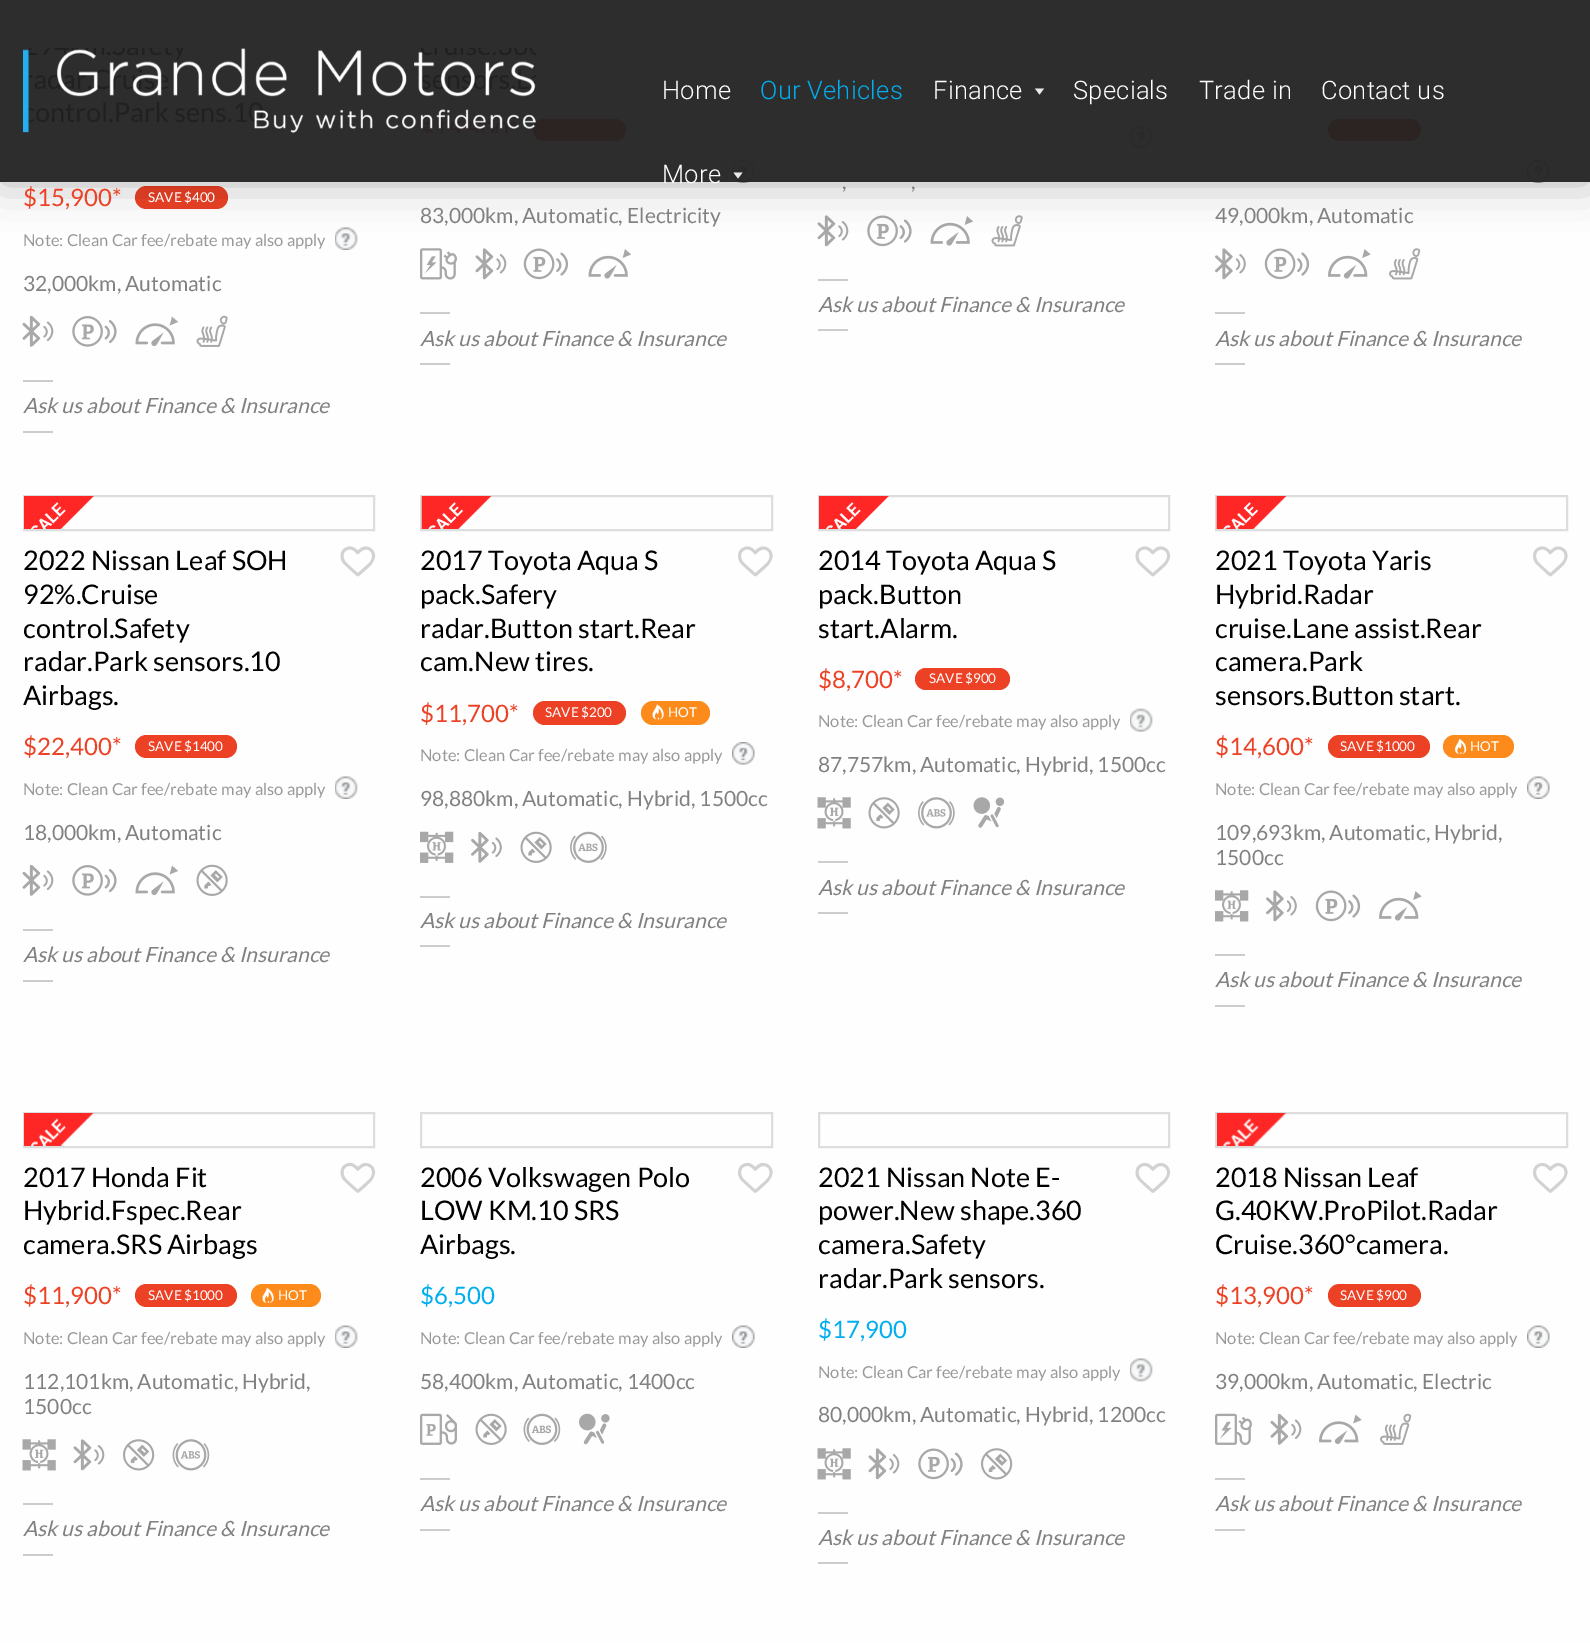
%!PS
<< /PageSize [1590 1643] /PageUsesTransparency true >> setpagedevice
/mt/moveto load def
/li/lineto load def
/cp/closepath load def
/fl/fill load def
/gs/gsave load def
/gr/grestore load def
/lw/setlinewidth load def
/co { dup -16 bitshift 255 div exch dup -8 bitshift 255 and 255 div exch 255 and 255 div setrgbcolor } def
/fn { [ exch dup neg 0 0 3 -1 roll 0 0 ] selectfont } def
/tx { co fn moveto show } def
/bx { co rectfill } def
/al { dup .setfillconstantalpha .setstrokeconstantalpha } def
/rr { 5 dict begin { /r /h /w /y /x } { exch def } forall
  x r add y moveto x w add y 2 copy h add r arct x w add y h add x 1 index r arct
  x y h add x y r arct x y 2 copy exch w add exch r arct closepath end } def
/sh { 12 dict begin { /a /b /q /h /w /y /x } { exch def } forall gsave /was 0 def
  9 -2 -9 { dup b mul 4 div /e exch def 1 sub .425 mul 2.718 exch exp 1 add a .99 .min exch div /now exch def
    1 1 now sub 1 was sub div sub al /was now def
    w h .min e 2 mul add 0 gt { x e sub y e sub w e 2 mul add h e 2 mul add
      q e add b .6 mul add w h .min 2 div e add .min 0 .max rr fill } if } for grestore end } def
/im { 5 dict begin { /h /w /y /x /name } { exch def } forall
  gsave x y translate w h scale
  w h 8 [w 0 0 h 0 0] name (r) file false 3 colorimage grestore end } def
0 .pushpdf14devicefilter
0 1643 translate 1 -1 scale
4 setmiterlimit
0 0 1590 1643 16#FEFEFE bx
16#EC4125 co
135 186 93 23 11.5 rr fl
(media/2.raw) 335 227 23 23 im
533 119 93 22 11 rr fl
(media/7.raw) 732 159 23 24 im
(media/8.raw) 420 248 37 32 im
(media/9.raw) 475 248 32 32 im
(media/10.raw) 523 248 46 32 im
(media/11.raw) 588 249 43 30 im
(media/12.raw) 1130 126 23 23 im
(media/9.raw) 817 215 32 32 im
(media/13.raw) 867 215 45 32 im
(media/11.raw) 930 216 43 30 im
(media/14.raw) 991 215 32 32 im
1328 119 93 22 11 rr fl
(media/7.raw) 1527 159 23 24 im
(media/15.raw) 1215 248 31 32 im
(media/10.raw) 1264 248 46 32 im
(media/16.raw) 1328 249 43 30 im
(media/17.raw) 1389 248 32 32 im
gs
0 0 mt 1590 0 li 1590 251 li 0 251 li cp 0 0 mt 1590 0 li 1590 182 li 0 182 li cp eoclip newpath
16#000000 co
0 0 1590 182 0 22.5 .3 sh
gr
0.95 al
0 0 1590 182 16#222222 bx
1 al
(media/1.raw) 23 48 513 85 im
16#EAEAEA co
1035 88.5 mt 1044 88.5 li 1039.5 94.5 li cp fl
733.5 172.5 mt 742.5 172.5 li 738 178.5 li cp fl
(media/3.raw) 22 315 32 32 im
(media/4.raw) 72 316 45 31 im
(media/5.raw) 135 316 43 30 im
(media/6.raw) 196 315 32 32 im
23 380 30 2 16#CCCCCC bx
23 431 30 2 16#CCCCCC bx
420 312 30 2 16#CCCCCC bx
420 363 30 2 16#CCCCCC bx
818 279 30 2 16#CCCCCC bx
818 329 30 2 16#CCCCCC bx
1215 312 30 2 16#CCCCCC bx
1215 363 30 2 16#CCCCCC bx
16#DDDDDD co
2 lw
24 496 350 34 rectstroke
(media/18.raw) 24 496 70 33 im
(media/19.raw) 340 546 36 31 im
16#EC4125 co
135 735 102 23 11.5 rr fl
(media/2.raw) 335 776 23 23 im
(media/3.raw) 22 864 32 32 im
(media/4.raw) 72 865 45 31 im
(media/5.raw) 135 865 43 30 im
(media/20.raw) 196 864 32 32 im
23 929 30 2 16#CCCCCC bx
23 980 30 2 16#CCCCCC bx
16#DDDDDD co
421 496 351 34 rectstroke
(media/21.raw) 421 496 71 33 im
(media/22.raw) 738 546 35 31 im
16#EC4125 co
533 701 93 24 12 rr fl
16#FD8B1C co
641 701 69 24 12 rr fl
(media/23.raw) 652 704 12 16 im
(media/24.raw) 732 742 23 23 im
(media/25.raw) 420 831 34 32 im
(media/26.raw) 471 831 31 32 im
(media/20.raw) 520 831 32 32 im
(media/27.raw) 570 831 37 32 im
420 896 30 2 16#CCCCCC bx
420 945 30 2 16#CCCCCC bx
16#DDDDDD co
819 496 350 34 rectstroke
(media/18.raw) 819 496 70 33 im
(media/19.raw) 1135 546 36 31 im
16#EC4125 co
915 668 95 22 11 rr fl
(media/28.raw) 1130 708 23 24 im
(media/29.raw) 817 797 34 32 im
(media/30.raw) 868 797 32 32 im
(media/31.raw) 918 797 37 32 im
(media/32.raw) 973 797 32 31 im
818 861 30 2 16#CCCCCC bx
818 912 30 2 16#CCCCCC bx
16#DDDDDD co
1216 496 351 34 rectstroke
(media/21.raw) 1216 496 71 33 im
(media/22.raw) 1533 546 35 31 im
16#EC4125 co
1328 735 102 23 11.5 rr fl
16#FD8B1C co
1443 735 71 23 11.5 rr fl
(media/33.raw) 1455 739 12 15 im
(media/34.raw) 1527 776 23 23 im
(media/35.raw) 1215 890 34 32 im
(media/15.raw) 1266 890 31 32 im
(media/10.raw) 1315 890 46 32 im
(media/16.raw) 1379 891 43 30 im
1215 954 30 2 16#CCCCCC bx
1215 1005 30 2 16#CCCCCC bx
16#DDDDDD co
24 1113 350 34 rectstroke
(media/36.raw) 24 1113 70 33 im
(media/37.raw) 340 1162 36 31 im
16#EC4125 co
135 1284 102 23 11.5 rr fl
16#FD8B1C co
251 1284 70 23 11.5 rr fl
(media/38.raw) 262 1288 12 15 im
(media/2.raw) 335 1325 23 23 im
(media/29.raw) 22 1439 34 32 im
(media/9.raw) 73 1439 32 32 im
(media/39.raw) 123 1439 32 32 im
(media/40.raw) 172 1439 38 32 im
23 1503 30 2 16#CCCCCC bx
23 1554 30 2 16#CCCCCC bx
16#DDDDDD co
421 1113 351 34 rectstroke
(media/41.raw) 738 1162 35 31 im
(media/34.raw) 732 1325 23 23 im
(media/42.raw) 420 1413 37 32 im
(media/20.raw) 475 1413 32 32 im
(media/43.raw) 523 1413 38 32 im
(media/44.raw) 579 1413 31 32 im
420 1478 30 2 16#CCCCCC bx
420 1529 30 2 16#CCCCCC bx
16#DDDDDD co
819 1113 350 34 rectstroke
(media/37.raw) 1135 1162 36 31 im
(media/45.raw) 1130 1358 23 24 im
(media/29.raw) 817 1448 34 32 im
(media/9.raw) 868 1448 32 32 im
(media/13.raw) 918 1448 45 32 im
(media/39.raw) 981 1448 32 32 im
818 1512 30 2 16#CCCCCC bx
818 1562 30 2 16#CCCCCC bx
16#DDDDDD co
1216 1113 351 34 rectstroke
(media/46.raw) 1217 1113 70 33 im
(media/41.raw) 1533 1162 35 31 im
16#EC4125 co
1328 1284 93 23 11.5 rr fl
(media/34.raw) 1527 1325 23 23 im
(media/47.raw) 1215 1413 37 32 im
(media/3.raw) 1270 1413 32 32 im
(media/48.raw) 1319 1414 43 30 im
(media/49.raw) 1380 1413 32 32 im
1215 1478 30 2 16#CCCCCC bx
1215 1529 30 2 16#CCCCCC bx
/Roboto-Light 25.5 fn
16#FFFFFF co
662 99 mt .25 0 (Home) ashow
16#00AEEF co
760 99 mt .25 0 (Our Vehicles) ashow
16#FFFFFF co
933 99 mt .25 0 (Finance) ashow
1073 99 mt .25 0 (Specials) ashow
1199 99 mt .25 0 (Trade in) ashow
1321 99 mt .25 0 (Contact us) ashow
662 183 mt .25 0 (More) ashow
($15,900*) 23 206 /Lato-Regular 24 16#EC4125 tx
(SAVE $400) 148 202 /Lato-Regular 13.5 16#FFFFFF tx
(Note: Clean Car fee/rebate may also apply) 23 246 /Lato-Regular 16.5 16#999999 tx
(32,000km, Automatic) 23 291 /Lato-Regular 21 16#818181 tx
(Ask us about Finance & Insurance) 23 413 /Lato-Italic 21 16#818181 tx
(83,000km, Automatic, Electricity) 420 223 /Lato-Regular 21 16#818181 tx
(Ask us about Finance & Insurance) 420 346 /Lato-Italic 21 16#818181 tx
(,) 842 189 /Lato-Regular 21 16#818181 tx
(,) 911 189 /Lato-Regular 21 16#818181 tx
(Ask us about Finance & Insurance) 818 312 /Lato-Italic 21 16#818181 tx
(49,000km, Automatic) 1215 223 /Lato-Regular 21 16#818181 tx
(Ask us about Finance & Insurance) 1215 346 /Lato-Italic 21 16#818181 tx
(2022 Nissan Leaf SOH) 23 570 /Lato-Regular 27 16#000000 tx
(92%.Cruise) 23 604 /Lato-Regular 27 16#000000 tx
(control.Safety) 23 638 /Lato-Regular 27 16#000000 tx
(radar.Park sensors.10) 23 671 /Lato-Regular 27 16#000000 tx
(Airbags.) 23 705 /Lato-Regular 27 16#000000 tx
($22,400*) 23 755 /Lato-Regular 24 16#EC4125 tx
(SAVE $1400) 148 751 /Lato-Regular 13.5 16#FFFFFF tx
(Note: Clean Car fee/rebate may also apply) 23 795 /Lato-Regular 16.5 16#999999 tx
(18,000km, Automatic) 23 840 /Lato-Regular 21 16#818181 tx
(Ask us about Finance & Insurance) 23 962 /Lato-Italic 21 16#818181 tx
(2017 Toyota Aqua S) 420 570 /Lato-Regular 27 16#000000 tx
(pack.Safery) 420 604 /Lato-Regular 27 16#000000 tx
(radar.Button start.Rear) 420 638 /Lato-Regular 27 16#000000 tx
(cam.New tires.) 420 671 /Lato-Regular 27 16#000000 tx
($11,700*) 420 722 /Lato-Regular 24 16#EC4125 tx
(SAVE $200) 545 717 /Lato-Regular 13.5 16#FFFFFF tx
(HOT) 668 717 /Lato-Regular 13.5 16#FFFFFF tx
(Note: Clean Car fee/rebate may also apply) 420 761 /Lato-Regular 16.5 16#999999 tx
(98,880km, Automatic, Hybrid, 1500cc) 420 806 /Lato-Regular 21 16#818181 tx
(Ask us about Finance & Insurance) 420 928 /Lato-Italic 21 16#818181 tx
(2014 Toyota Aqua S) 818 570 /Lato-Regular 27 16#000000 tx
(pack.Button) 818 604 /Lato-Regular 27 16#000000 tx
(start.Alarm.) 818 638 /Lato-Regular 27 16#000000 tx
($8,700*) 818 688 /Lato-Regular 24 16#EC4125 tx
(SAVE $900) 929 683 /Lato-Regular 13.5 16#FFFFFF tx
(Note: Clean Car fee/rebate may also apply) 818 727 /Lato-Regular 16.5 16#999999 tx
(87,757km, Automatic, Hybrid, 1500cc) 818 772 /Lato-Regular 21 16#818181 tx
(Ask us about Finance & Insurance) 818 895 /Lato-Italic 21 16#818181 tx
(2021 Toyota Yaris) 1215 570 /Lato-Regular 27 16#000000 tx
(Hybrid.Radar) 1215 604 /Lato-Regular 27 16#000000 tx
(cruise.Lane assist.Rear) 1215 638 /Lato-Regular 27 16#000000 tx
(camera.Park) 1215 671 /Lato-Regular 27 16#000000 tx
(sensors.Button start.) 1215 705 /Lato-Regular 27 16#000000 tx
($14,600*) 1215 755 /Lato-Regular 24 16#EC4125 tx
(SAVE $1000) 1340 751 /Lato-Regular 13.5 16#FFFFFF tx
(HOT) 1470 751 /Lato-Regular 13.5 16#FFFFFF tx
(Note: Clean Car fee/rebate may also apply) 1215 795 /Lato-Regular 16.5 16#999999 tx
(109,693km, Automatic, Hybrid,) 1215 840 /Lato-Regular 21 16#818181 tx
(1500cc) 1215 865 /Lato-Regular 21 16#818181 tx
(Ask us about Finance & Insurance) 1215 987 /Lato-Italic 21 16#818181 tx
(2017 Honda Fit) 23 1187 /Lato-Regular 27 16#000000 tx
(Hybrid.Fspec.Rear) 23 1220 /Lato-Regular 27 16#000000 tx
(camera.SRS Airbags) 23 1254 /Lato-Regular 27 16#000000 tx
($11,900*) 23 1304 /Lato-Regular 24 16#EC4125 tx
(SAVE $1000) 148 1300 /Lato-Regular 13.5 16#FFFFFF tx
(HOT) 278 1300 /Lato-Regular 13.5 16#FFFFFF tx
(Note: Clean Car fee/rebate may also apply) 23 1344 /Lato-Regular 16.5 16#999999 tx
(112,101km, Automatic, Hybrid,) 23 1389 /Lato-Regular 21 16#818181 tx
(1500cc) 23 1414 /Lato-Regular 21 16#818181 tx
(Ask us about Finance & Insurance) 23 1536 /Lato-Italic 21 16#818181 tx
(2006 Volkswagen Polo) 420 1187 /Lato-Regular 27 16#000000 tx
(LOW KM.10 SRS) 420 1220 /Lato-Regular 27 16#000000 tx
(Airbags.) 420 1254 /Lato-Regular 27 16#000000 tx
($6,500) 420 1304 /Lato-Regular 24 16#00AEEF tx
(Note: Clean Car fee/rebate may also apply) 420 1344 /Lato-Regular 16.5 16#999999 tx
(58,400km, Automatic, 1400cc) 420 1389 /Lato-Regular 21 16#818181 tx
(Ask us about Finance & Insurance) 420 1511 /Lato-Italic 21 16#818181 tx
(2021 Nissan Note E-) 818 1187 /Lato-Regular 27 16#000000 tx
(power.New shape.360) 818 1220 /Lato-Regular 27 16#000000 tx
(camera.Safety) 818 1254 /Lato-Regular 27 16#000000 tx
(radar.Park sensors.) 818 1288 /Lato-Regular 27 16#000000 tx
($17,900) 818 1338 /Lato-Regular 24 16#00AEEF tx
(Note: Clean Car fee/rebate may also apply) 818 1378 /Lato-Regular 16.5 16#999999 tx
(80,000km, Automatic, Hybrid, 1200cc) 818 1422 /Lato-Regular 21 16#818181 tx
(Ask us about Finance & Insurance) 818 1545 /Lato-Italic 21 16#818181 tx
(2018 Nissan Leaf) 1215 1187 /Lato-Regular 27 16#000000 tx
(G.40KW.ProPilot.Radar) 1215 1220 /Lato-Regular 27 16#000000 tx
(Cruise.360°camera.) 1215 1254 /Lato-Regular 27 16#000000 tx
($13,900*) 1215 1304 /Lato-Regular 24 16#EC4125 tx
(SAVE $900) 1340 1300 /Lato-Regular 13.5 16#FFFFFF tx
(Note: Clean Car fee/rebate may also apply) 1215 1344 /Lato-Regular 16.5 16#999999 tx
(39,000km, Automatic, Electric) 1215 1389 /Lato-Regular 21 16#818181 tx
(Ask us about Finance & Insurance) 1215 1511 /Lato-Italic 21 16#818181 tx
.poppdf14devicefilter showpage
